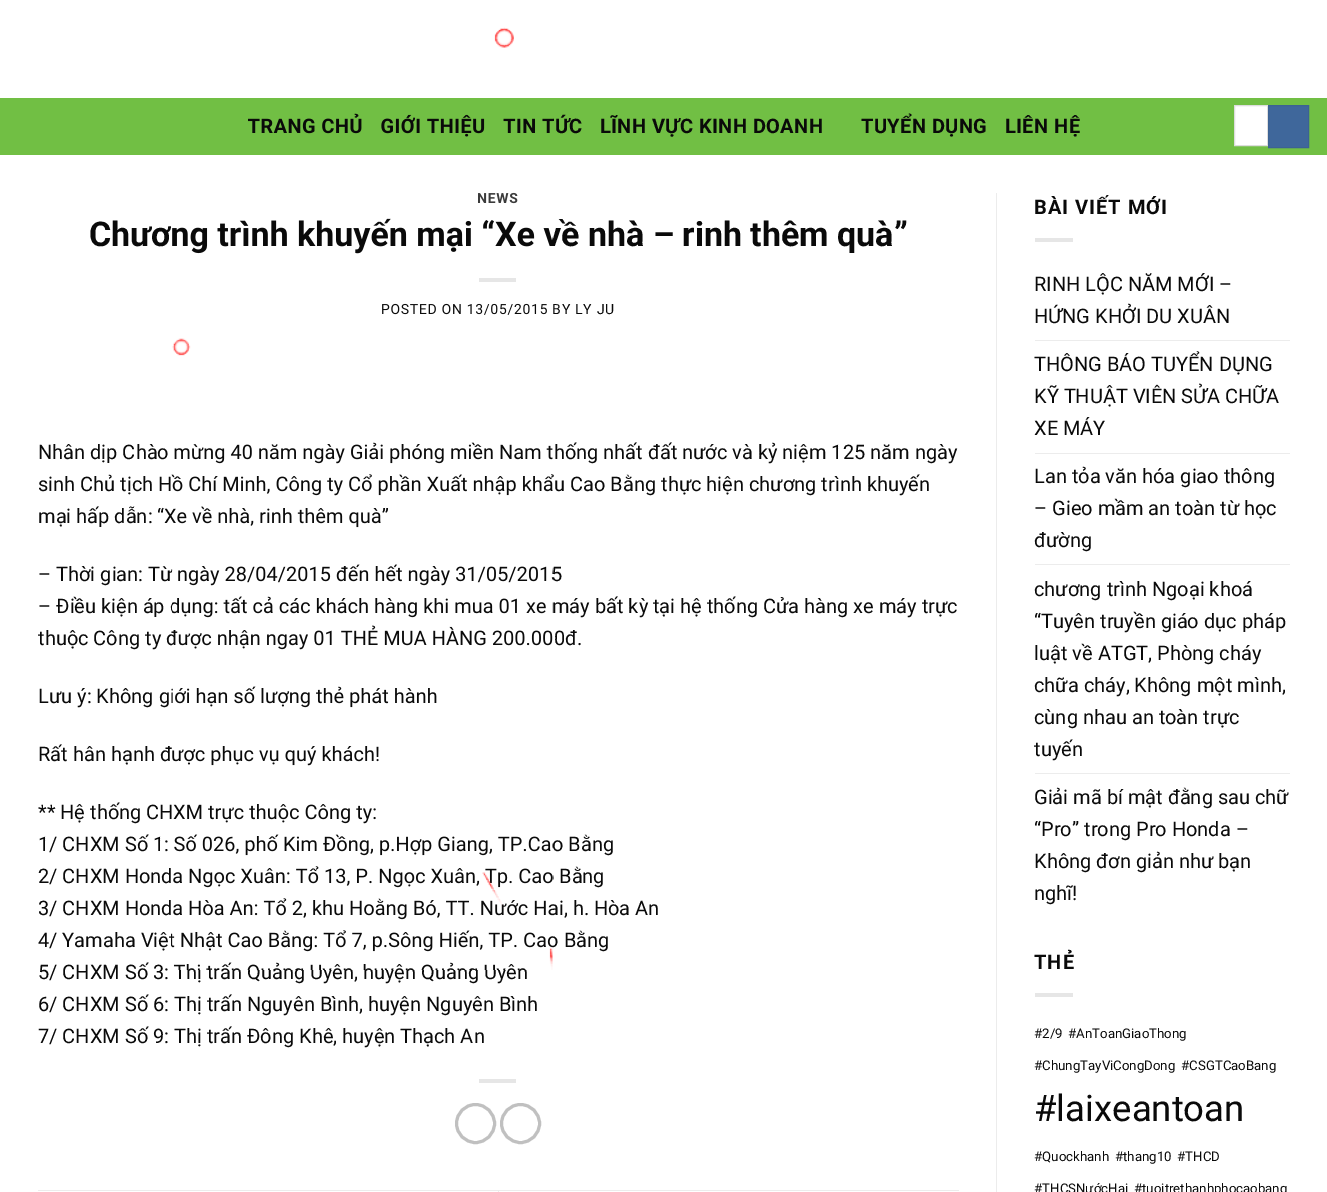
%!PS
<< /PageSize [1327 1192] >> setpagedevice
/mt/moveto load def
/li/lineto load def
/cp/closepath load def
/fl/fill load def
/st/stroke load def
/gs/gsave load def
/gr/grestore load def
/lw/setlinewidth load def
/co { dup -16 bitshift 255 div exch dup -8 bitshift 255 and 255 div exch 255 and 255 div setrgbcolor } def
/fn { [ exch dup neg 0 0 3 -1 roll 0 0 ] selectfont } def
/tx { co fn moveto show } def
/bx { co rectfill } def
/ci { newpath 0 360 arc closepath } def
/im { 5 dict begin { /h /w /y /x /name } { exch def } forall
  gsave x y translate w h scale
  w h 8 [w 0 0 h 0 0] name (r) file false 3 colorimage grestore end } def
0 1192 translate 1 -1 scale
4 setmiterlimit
0 0 1327 1192 16#FFFFFF bx
0 98 1327 57 16#71BF44 bx
16#FFFFFF co
1234.5 105.5 mt 1267.5 105.5 li 1267.5 145.5 li 1234.5 145.5 li cp gs fl gr
16#DDDDDD co
st
16#3F679B co
1268.5 105.5 mt 1308.5 105.5 li 1308.5 147.5 li 1268.5 147.5 li cp gs fl gr
16#3C6293 co
st
479 278 37 4 16#E6E6E6 bx
479 1079 37 4 16#E6E6E6 bx
16#C0C0C0 co
3 lw
475.5 1123.5 19 ci st
520.5 1123.5 19 ci st
38 1190 921 1 16#ECECEC bx
498 1191 1 1 16#ECECEC bx
996 193 1 999 16#ECECEC bx
1035 238 38 4 16#E6E6E6 bx
1035 340 255 1 16#ECECEC bx
1035 453 255 1 16#ECECEC bx
1035 564 255 1 16#ECECEC bx
1035 773 255 1 16#ECECEC bx
1035 993 38 4 16#E6E6E6 bx
/Roboto-Bold 20 fn
16#0A0A0A co
248 133 mt .4 0 (TRANG CHỦ) ashow
380 133 mt .4 0 (GIỚI THIỆU) ashow
503 133 mt .4 0 (TIN TỨC) ashow
600 133 mt .4 0 (LĨNH VỰC KINH DOANH) ashow
861 133 mt .4 0 (TUYỂN DỤNG) ashow
1005 133 mt .4 0 (LIÊN HỆ) ashow
/Roboto-Bold 14 fn
16#3B3B3B co
477 203 mt .7 0 (NEWS) ashow
(Chương trình khuyến mại “Xe về nhà – rinh thêm quà”) 89 246 /Roboto-Bold 34 16#0A0A0A tx
/Roboto-Regular 14 fn
381 314 mt .7 0 (POSTED ON 13/05/2015 BY LY JU) ashow
(Nhân dịp Chào mừng 40 năm ngày Giải phóng miền Nam thống nhất đất nước và kỷ niệm 125 năm ngày) 38 459 /Roboto-Regular 20 16#0A0A0A tx
(sinh Chủ tịch Hồ Chí Minh, Công ty Cổ phần Xuất nhập khẩu Cao Bằng thực hiện chương trình khuyến) 38 491 /Roboto-Regular 20 16#0A0A0A tx
(mại hấp dẫn: “Xe về nhà, rinh thêm quà”) 38 523 /Roboto-Regular 20 16#0A0A0A tx
(– Thời gian: Từ ngày 28/04/2015 đến hết ngày 31/05/2015) 38 581 /Roboto-Regular 20 16#0A0A0A tx
(– Điều kiện áp dụng: tất cả các khách hàng khi mua 01 xe máy bất kỳ tại hệ thống Cửa hàng xe máy trực) 38 613 /Roboto-Regular 20 16#0A0A0A tx
(thuộc Công ty được nhận ngay 01 THẺ MUA HÀNG 200.000đ.) 38 645 /Roboto-Regular 20 16#0A0A0A tx
(Lưu ý: Không giới hạn số lượng thẻ phát hành) 38 703 /Roboto-Regular 20 16#0A0A0A tx
(Rất hân hạnh được phục vụ quý khách!) 38 761 /Roboto-Regular 20 16#0A0A0A tx
(** Hệ thống CHXM trực thuộc Công ty:) 38 819 /Roboto-Regular 20 16#0A0A0A tx
(1/ CHXM Số 1: Số 026, phố Kim Đồng, p.Hợp Giang, TP.Cao Bằng) 38 851 /Roboto-Regular 20 16#0A0A0A tx
(2/ CHXM Honda Ngọc Xuân: Tổ 13, P. Ngọc Xuân, Tp. Cao Bằng) 38 883 /Roboto-Regular 20 16#0A0A0A tx
(3/ CHXM Honda Hòa An: Tổ 2, khu Hoằng Bó, TT. Nước Hai, h. Hòa An) 38 915 /Roboto-Regular 20 16#0A0A0A tx
(4/ Yamaha Việt Nhật Cao Bằng: Tổ 7, p.Sông Hiến, TP. Cao Bằng) 38 947 /Roboto-Regular 20 16#0A0A0A tx
(5/ CHXM Số 3: Thị trấn Quảng Uyên, huyện Quảng Uyên) 38 979 /Roboto-Regular 20 16#0A0A0A tx
(media/1.raw) 172 27 381 943 im
(6/ CHXM Số 6: Thị trấn Nguyên Bình, huyện Nguyên Bình) 38 1011 /Roboto-Regular 20 16#0A0A0A tx
(7/ CHXM Số 9: Thị trấn Đông Khê, huyện Thạch An) 38 1043 /Roboto-Regular 20 16#0A0A0A tx
/Roboto-Bold 20 fn
1034 214 mt 1 0 (BÀI VIẾT MỚI) ashow
(RINH LỘC NĂM MỚI –) 1034 291 /Roboto-Regular 20 16#0A0A0A tx
(HỨNG KHỞI DU XUÂN) 1034 323 /Roboto-Regular 20 16#0A0A0A tx
(THÔNG BÁO TUYỂN DỤNG) 1034 371 /Roboto-Regular 20 16#0A0A0A tx
(KỸ THUẬT VIÊN SỬA CHỮA) 1034 403 /Roboto-Regular 20 16#0A0A0A tx
(XE MÁY) 1034 435 /Roboto-Regular 20 16#0A0A0A tx
(Lan tỏa văn hóa giao thông) 1034 483 /Roboto-Regular 20 16#0A0A0A tx
(– Gieo mầm an toàn từ học) 1034 515 /Roboto-Regular 20 16#0A0A0A tx
(đường) 1034 547 /Roboto-Regular 20 16#0A0A0A tx
(chương trình Ngoại khoá) 1034 596 /Roboto-Regular 20 16#0A0A0A tx
(“Tuyên truyền giáo dục pháp) 1034 628 /Roboto-Regular 20 16#0A0A0A tx
(luật về ATGT, Phòng cháy) 1034 660 /Roboto-Regular 20 16#0A0A0A tx
(chữa cháy, Không một mình,) 1034 692 /Roboto-Regular 20 16#0A0A0A tx
(cùng nhau an toàn trực) 1034 724 /Roboto-Regular 20 16#0A0A0A tx
(tuyến) 1034 756 /Roboto-Regular 20 16#0A0A0A tx
(Giải mã bí mật đằng sau chữ) 1034 804 /Roboto-Regular 20 16#0A0A0A tx
(“Pro” trong Pro Honda –) 1034 836 /Roboto-Regular 20 16#0A0A0A tx
(Không đơn giản như bạn) 1034 868 /Roboto-Regular 20 16#0A0A0A tx
(nghĩ!) 1034 900 /Roboto-Regular 20 16#0A0A0A tx
/Roboto-Bold 20 fn
1034 969 mt 1 0 (THẺ) ashow
(#2/9) 1034 1038 /Roboto-Regular 13.25 16#0A0A0A tx
(#AnToanGiaoThong) 1068 1038 /Roboto-Regular 13.25 16#0A0A0A tx
(#ChungTayViCongDong) 1034 1070 /Roboto-Regular 13.25 16#0A0A0A tx
(#CSGTCaoBang) 1181 1070 /Roboto-Regular 13.25 16#0A0A0A tx
(#laixeantoan) 1034 1121 /Roboto-Regular 36.5 16#0A0A0A tx
(#Quockhanh) 1034 1161 /Roboto-Regular 13.25 16#0A0A0A tx
(#thang10) 1115 1161 /Roboto-Regular 13.25 16#0A0A0A tx
(#THCD) 1177 1161 /Roboto-Regular 13.25 16#0A0A0A tx
(#THCSNướcHai) 1034 1193 /Roboto-Regular 13.25 16#0A0A0A tx
(#tuoitrethanhphocaobang) 1134 1193 /Roboto-Regular 13.25 16#0A0A0A tx
showpage
